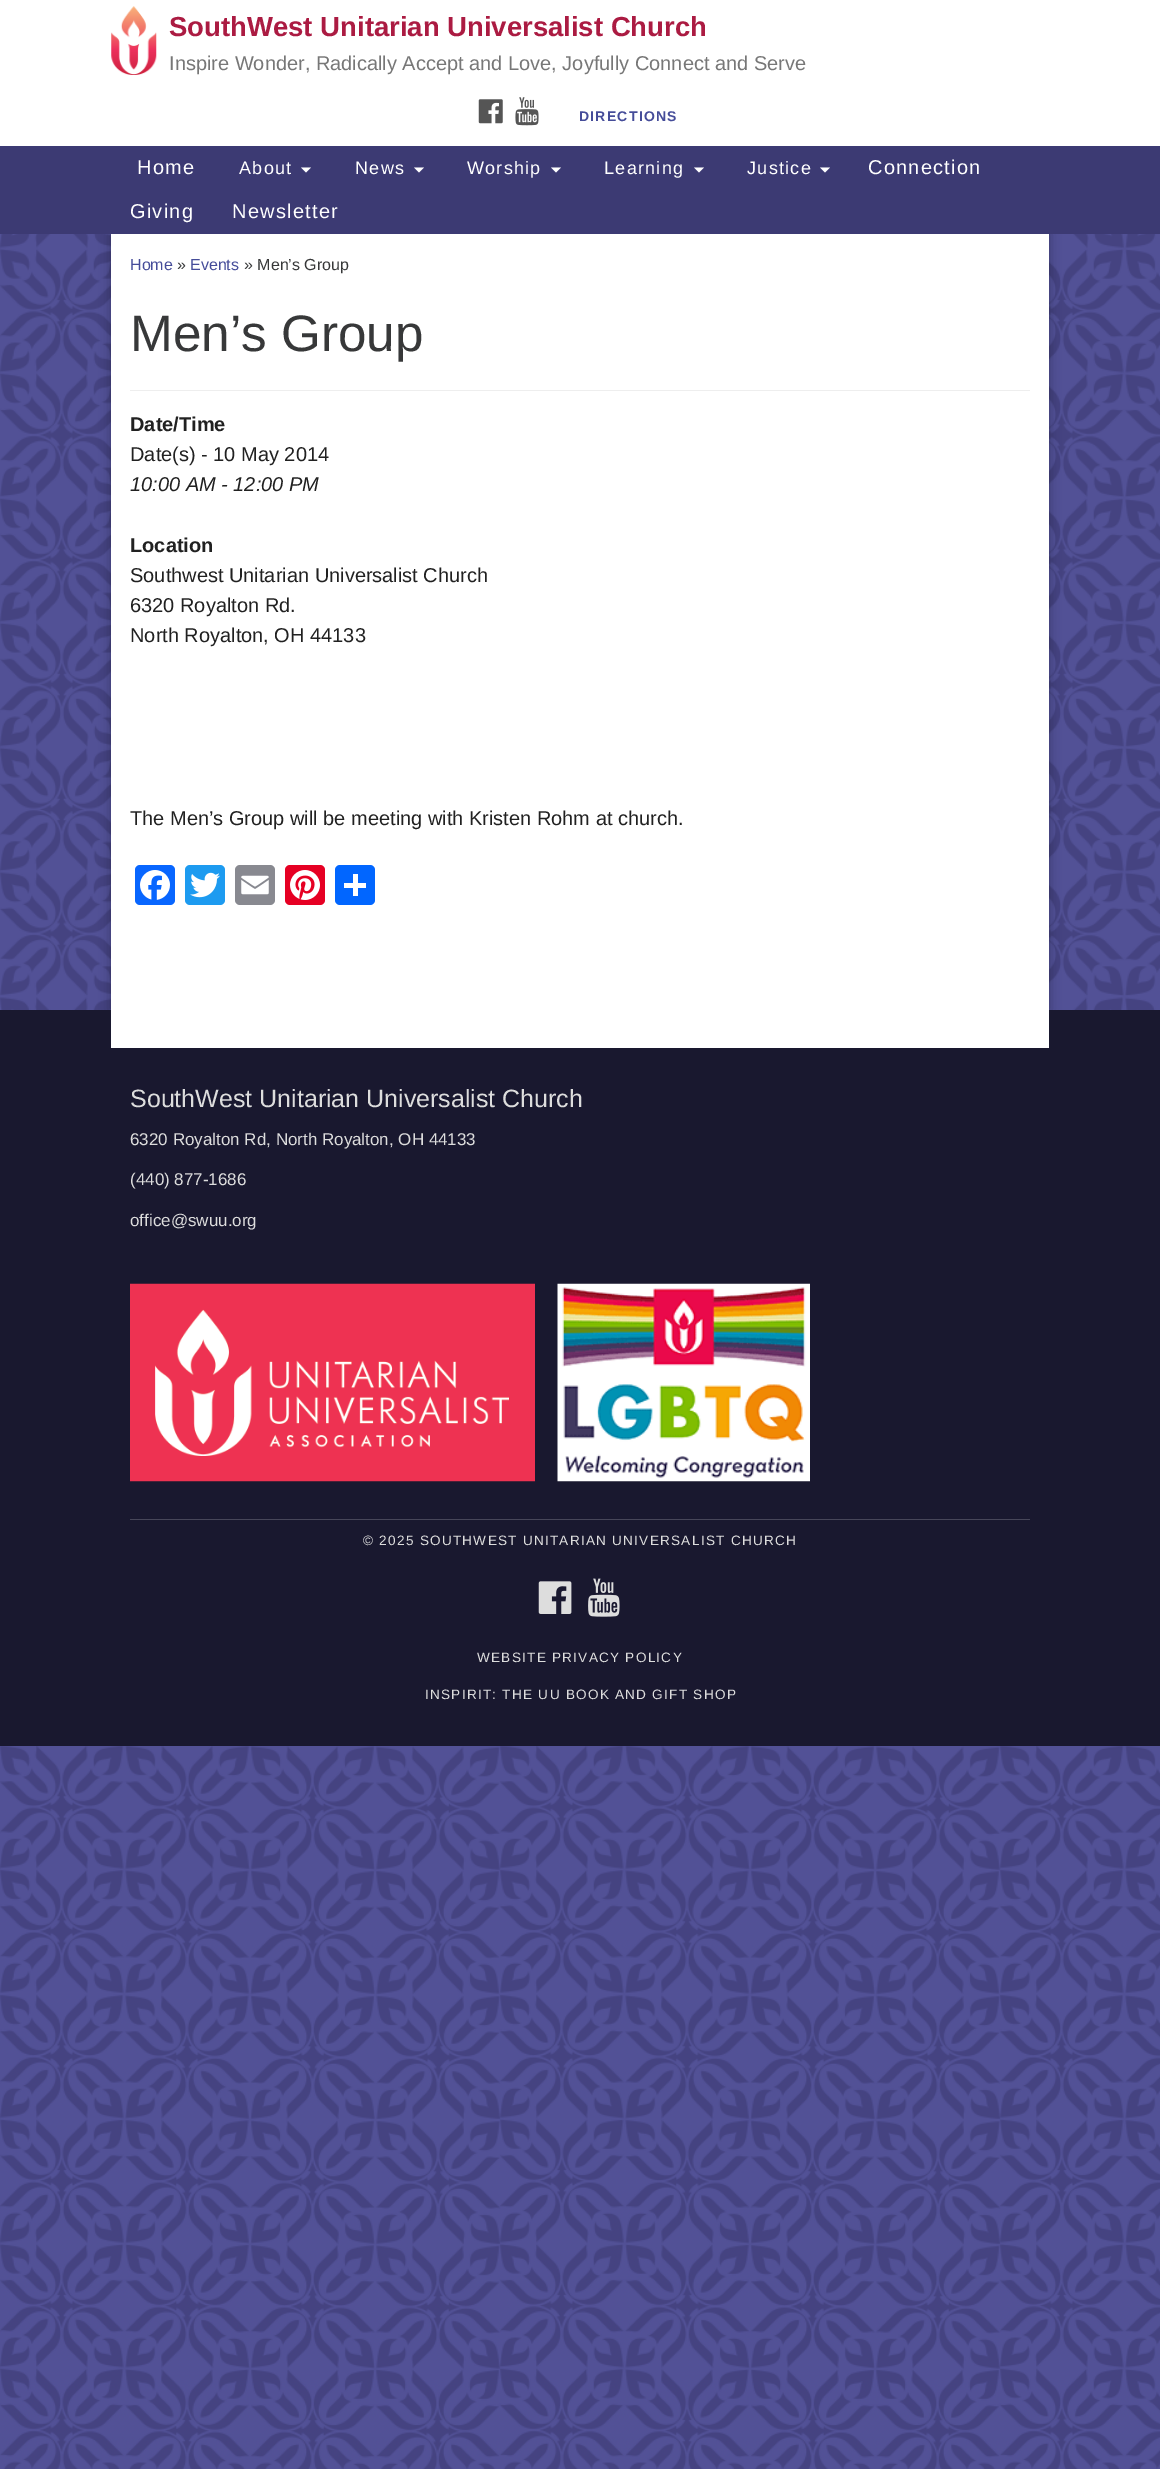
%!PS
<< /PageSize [1160 2469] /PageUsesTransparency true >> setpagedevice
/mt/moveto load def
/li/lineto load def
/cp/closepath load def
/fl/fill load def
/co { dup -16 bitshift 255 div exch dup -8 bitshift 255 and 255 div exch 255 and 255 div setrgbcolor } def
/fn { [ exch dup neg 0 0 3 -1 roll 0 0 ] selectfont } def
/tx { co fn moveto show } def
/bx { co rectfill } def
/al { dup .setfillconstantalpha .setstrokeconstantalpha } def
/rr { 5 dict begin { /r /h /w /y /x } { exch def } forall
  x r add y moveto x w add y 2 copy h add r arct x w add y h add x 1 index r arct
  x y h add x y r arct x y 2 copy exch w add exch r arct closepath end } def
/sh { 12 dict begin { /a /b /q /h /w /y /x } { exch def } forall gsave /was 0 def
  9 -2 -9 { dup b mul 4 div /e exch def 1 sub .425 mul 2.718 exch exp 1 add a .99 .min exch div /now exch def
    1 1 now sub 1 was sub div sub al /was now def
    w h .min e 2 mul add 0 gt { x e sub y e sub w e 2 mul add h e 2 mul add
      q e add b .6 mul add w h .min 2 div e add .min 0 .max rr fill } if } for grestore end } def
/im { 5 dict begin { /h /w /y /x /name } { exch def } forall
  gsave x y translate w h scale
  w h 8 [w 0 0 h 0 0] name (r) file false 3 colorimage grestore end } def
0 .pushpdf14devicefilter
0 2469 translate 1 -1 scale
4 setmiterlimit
0 0 1160 2469 16#FFFFFF bx
(media/1.raw) 0 234 1160 2235 im
(media/2.raw) 111 6 46 69 im
(media/3.raw) 478 99 25 25 im
(media/4.raw) 515 97 24 29 im
16#000000 co
111 234 938 776 0 6 .3 sh
0 146 1160 88 16#3C3A73 bx
16#FFFFFF co
301 167.5 mt 311 167.5 li 306 172.5 li cp fl
414 167.5 mt 424 167.5 li 419 172.5 li cp fl
551 167.5 mt 561 167.5 li 556 172.5 li cp fl
694 167.5 mt 704 167.5 li 699 172.5 li cp fl
820 167.5 mt 830 167.5 li 825 172.5 li cp fl
111 234 938 776 16#FFFFFF bx
130 390 900 1 16#EEEEEE bx
16#0866FF co
135 865 40 40 5 rr fl
(media/5.raw) 140 870 30 30 im
16#1D9BF0 co
185 865 40 40 5 rr fl
(media/6.raw) 190 872 30 26 im
16#888990 co
235 865 40 40 5 rr fl
(media/7.raw) 241 875 28 20 im
16#E60023 co
285 865 40 40 5 rr fl
(media/8.raw) 290 870 30 30 im
16#0166FF co
335 865 40 40 5 rr fl
353 874 5 22 16#FFFFFF bx
344 883 22 5 16#FFFFFF bx
0 1010 1160 736 16#19182F bx
111 1010 938 38 16#FFFFFF bx
(media/9.raw) 130 1283 405 199 im
(media/10.raw) 557 1283 253 199 im
130 1519 900 1 16#474659 bx
(media/11.raw) 538 1581 34 33 im
(media/12.raw) 588 1578 32 39 im
(SouthWest Unitarian Universalist Church) 169 36 /LiberationSans-Bold 27.5 16#AB1B42 tx
(Inspire Wonder, Radically Accept and Love, Joyfully Connect and Serve) 169 70 /LiberationSans-Regular 20 16#777777 tx
/LiberationSans-Bold 14 fn
16#454C99 co
579 121 mt 1.25 0 (DIRECTIONS) ashow
/LiberationSans-Regular 20 fn
16#FFFFFF co
137 174 mt 1.25 0 (Home) ashow
/LiberationSans-Regular 18 fn
239 174 mt 1.25 0 (About) ashow
355 174 mt 1.25 0 (News) ashow
467 174 mt 1.25 0 (Worship) ashow
604 174 mt 1.25 0 (Learning) ashow
747 174 mt 1.25 0 (Justice) ashow
/LiberationSans-Regular 20 fn
868 174 mt 1.25 0 (Connection) ashow
130 218 mt 1.25 0 (Giving) ashow
232 218 mt 1.25 0 (Newsletter) ashow
(Home) 130 270 /LiberationSans-Regular 16 16#454C99 tx
(») 177 270 /LiberationSans-Regular 16 16#373839 tx
(Events) 190 270 /LiberationSans-Regular 16 16#454C99 tx
(» Men’s Group) 244 270 /LiberationSans-Regular 16 16#373839 tx
(Men’s Group) 130 351 /LiberationSans-Regular 51.25 16#373839 tx
(Date/Time) 130 431 /LiberationSans-Bold 20 16#212121 tx
(Date\(s\) - 10 May 2014) 130 461 /LiberationSans-Regular 20 16#212121 tx
(10:00 AM - 12:00 PM) 130 491 /LiberationSans-Italic 20 16#212121 tx
(Location) 130 552 /LiberationSans-Bold 20 16#212121 tx
(Southwest Unitarian Universalist Church) 130 582 /LiberationSans-Regular 20 16#212121 tx
(6320 Royalton Rd.) 130 612 /LiberationSans-Regular 20 16#212121 tx
(North Royalton, OH 44133) 130 642 /LiberationSans-Regular 20 16#212121 tx
(The Men’s Group will be meeting with Kristen Rohm at church.) 130 825 /LiberationSans-Regular 20 16#212121 tx
(SouthWest Unitarian Universalist Church) 130 1107 /LiberationSans-Regular 25 16#DDDDDD tx
(6320 Royalton Rd, North Royalton, OH 44133) 130 1145 /LiberationSans-Regular 17 16#DDDDDD tx
(\(440\) 877-1686) 130 1185 /LiberationSans-Regular 17 16#DDDDDD tx
(office@swuu.org) 130 1226 /LiberationSans-Regular 17 16#DDDDDD tx
/LiberationSans-Regular 13.6 fn
363 1545 mt 1.25 0 (© 2025 SOUTHWEST UNITARIAN UNIVERSALIST CHURCH) ashow
477 1662 mt 1.25 0 (WEBSITE PRIVACY POLICY) ashow
425 1699 mt 1.25 0 (INSPIRIT: THE UU BOOK AND GIFT SHOP) ashow
.poppdf14devicefilter showpage
